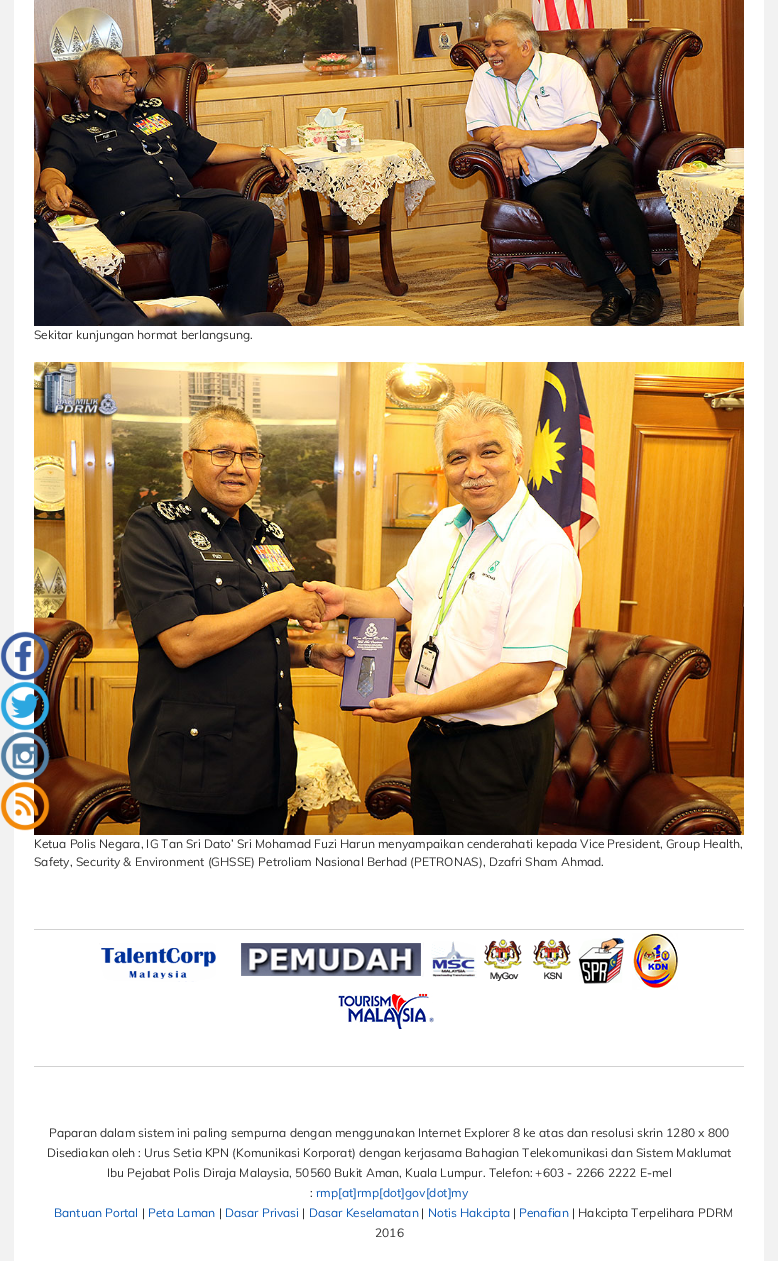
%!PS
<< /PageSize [778 1261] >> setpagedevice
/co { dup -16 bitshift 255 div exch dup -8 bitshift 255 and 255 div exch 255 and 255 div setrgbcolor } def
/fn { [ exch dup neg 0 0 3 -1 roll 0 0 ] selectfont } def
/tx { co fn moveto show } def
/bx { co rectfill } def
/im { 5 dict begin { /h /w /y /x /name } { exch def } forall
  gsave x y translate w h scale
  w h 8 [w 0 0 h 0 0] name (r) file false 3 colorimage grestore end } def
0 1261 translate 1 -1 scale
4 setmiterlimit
0 0 778 1261 16#F2F2F2 bx
14 0 750 1261 16#FFFFFF bx
(media/6.raw) 34 362 710 473 im
(media/1.raw) 0 631 50 50 im
(media/2.raw) 0 681 50 50 im
(media/3.raw) 0 731 50 50 im
(media/4.raw) 0 781 50 50 im
(media/5.raw) 34 0 710 326 im
34 929 710 1 16#D1D1D1 bx
(media/7.raw) 99 943 117 39 im
(media/8.raw) 241 942 183 35 im
(media/9.raw) 431 941 46 37 im
(media/10.raw) 484 939 38 42 im
(media/11.raw) 533 939 38 41 im
(media/12.raw) 578 938 47 46 im
(media/13.raw) 632 933 46 57 im
(media/14.raw) 338 993 96 36 im
34 1066 710 1 16#D1D1D1 bx
(Sekitar kunjungan hormat berlangsung.) 34 339 /Muli-Regular 12 16#333333 tx
(Ketua Polis Negara, IG Tan Sri Dato’ Sri Mohamad Fuzi Harun menyampaikan cenderahati kepada Vice President, Group Health,) 34 848 /Muli-Regular 12 16#333333 tx
(Safety, Security & Environment \(GHSSE\) Petroliam Nasional Berhad \(PETRONAS\), Dzafri Sham Ahmad.) 34 866 /Muli-Regular 12 16#333333 tx
(Paparan dalam sistem ini paling sempurna dengan menggunakan Internet Explorer 8 ke atas dan resolusi skrin 1280 x 800) 49 1137 /Muli-Regular 12 16#333333 tx
(Disediakan oleh : Urus Setia KPN \(Komunikasi Korporat\) dengan kerjasama Bahagian Telekomunikasi dan Sistem Maklumat) 47 1157 /Muli-Regular 12 16#333333 tx
(Ibu Pejabat Polis Diraja Malaysia, 50560 Bukit Aman, Kuala Lumpur. Telefon: +603 - 2266 2222 E-mel) 107 1177 /Muli-Regular 12 16#333333 tx
(:) 310 1197 /Muli-Regular 12 16#333333 tx
(rmp[at]rmp[dot]gov[dot]my) 316 1197 /Muli-Regular 12 16#105CB6 tx
(Bantuan Portal) 54 1217 /Muli-Regular 12 16#105CB6 tx
(|) 142 1217 /Muli-Regular 12 16#333333 tx
(Peta Laman) 148 1217 /Muli-Regular 12 16#105CB6 tx
(|) 219 1217 /Muli-Regular 12 16#333333 tx
(Dasar Privasi) 225 1217 /Muli-Regular 12 16#105CB6 tx
(|) 302 1217 /Muli-Regular 12 16#333333 tx
(Dasar Keselamatan) 309 1217 /Muli-Regular 12 16#105CB6 tx
(|) 421 1217 /Muli-Regular 12 16#333333 tx
(Notis Hakcipta) 428 1217 /Muli-Regular 12 16#105CB6 tx
(|) 513 1217 /Muli-Regular 12 16#333333 tx
(Penafian) 519 1217 /Muli-Regular 12 16#105CB6 tx
(| Hakcipta Terpelihara PDRM) 572 1217 /Muli-Regular 12 16#333333 tx
(2016) 375 1237 /Muli-Regular 12 16#333333 tx
showpage
